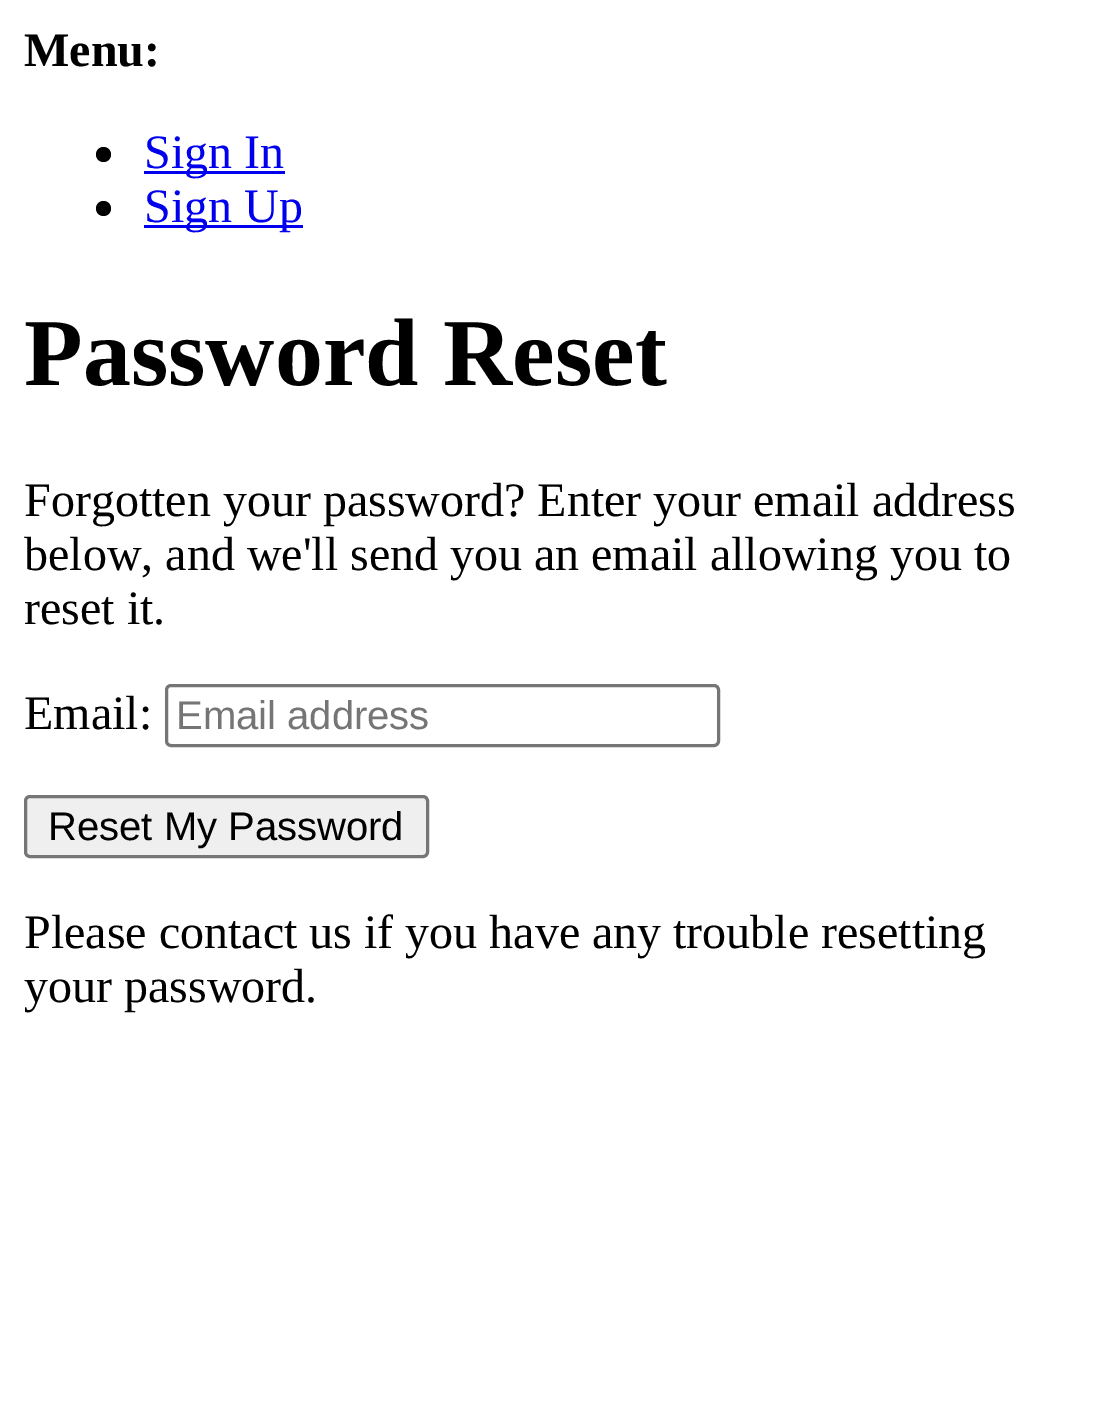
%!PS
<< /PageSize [1102 1415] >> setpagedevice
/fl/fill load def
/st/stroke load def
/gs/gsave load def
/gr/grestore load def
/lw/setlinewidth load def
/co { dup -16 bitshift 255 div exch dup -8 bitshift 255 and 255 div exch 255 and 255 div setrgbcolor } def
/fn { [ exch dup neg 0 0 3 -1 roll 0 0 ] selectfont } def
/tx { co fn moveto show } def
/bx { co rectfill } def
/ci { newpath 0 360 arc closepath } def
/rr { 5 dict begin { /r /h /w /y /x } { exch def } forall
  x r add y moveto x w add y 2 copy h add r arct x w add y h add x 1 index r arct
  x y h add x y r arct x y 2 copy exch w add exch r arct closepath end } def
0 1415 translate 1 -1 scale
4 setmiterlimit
0 0 1102 1415 16#FFFFFF bx
16#000000 co
103.5 154.5 7.5 ci fl
144 171 141 3 16#0000EE bx
16#000000 co
103.5 208.5 7.5 ci fl
144 225 159 3 16#0000EE bx
16#767676 co
3 lw
166.5 685.5 552 60 4.5 rr st
16#EFEFEF co
25.5 796.5 402 60 4.5 rr gs fl gr
16#767676 co
st
(Menu:) 24 66 /LiberationSerif-Bold 48 16#000000 tx
(Sign In) 144 168 /LiberationSerif-Regular 48 16#0000EE tx
(Sign Up) 144 222 /LiberationSerif-Regular 48 16#0000EE tx
(Password Reset) 24 385 /LiberationSerif-Bold 96 16#000000 tx
(Forgotten your password? Enter your email address) 24 516 /LiberationSerif-Regular 48 16#000000 tx
(below, and we'll send you an email allowing you to) 24 570 /LiberationSerif-Regular 48 16#000000 tx
(reset it.) 24 624 /LiberationSerif-Regular 48 16#000000 tx
(Email:) 24 729 /LiberationSerif-Regular 48 16#000000 tx
(Email address) 176 729 /LiberationSans-Regular 40 16#757575 tx
(Reset My Password) 48 840 /LiberationSans-Regular 40 16#000000 tx
(Please contact us if you have any trouble resetting) 24 948 /LiberationSerif-Regular 48 16#000000 tx
(your password.) 24 1002 /LiberationSerif-Regular 48 16#000000 tx
showpage
